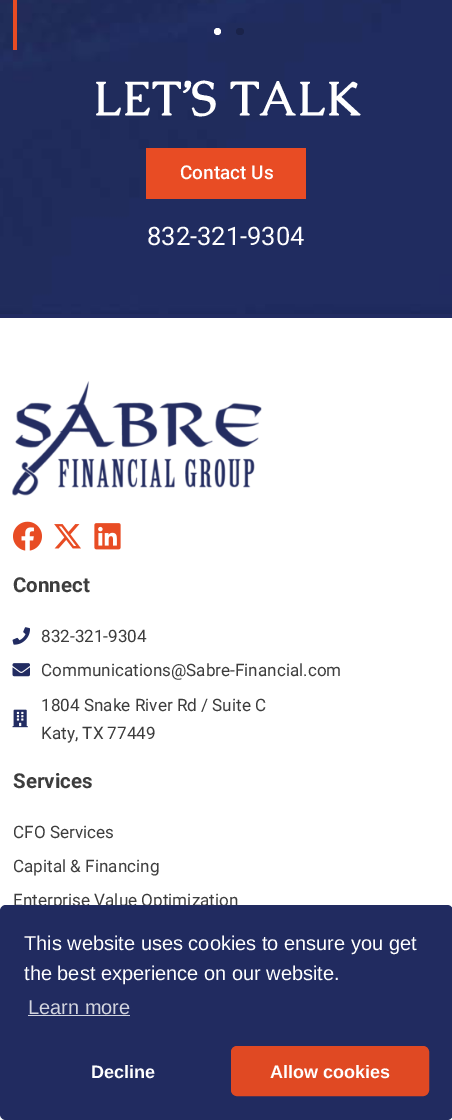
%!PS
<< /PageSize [452 1120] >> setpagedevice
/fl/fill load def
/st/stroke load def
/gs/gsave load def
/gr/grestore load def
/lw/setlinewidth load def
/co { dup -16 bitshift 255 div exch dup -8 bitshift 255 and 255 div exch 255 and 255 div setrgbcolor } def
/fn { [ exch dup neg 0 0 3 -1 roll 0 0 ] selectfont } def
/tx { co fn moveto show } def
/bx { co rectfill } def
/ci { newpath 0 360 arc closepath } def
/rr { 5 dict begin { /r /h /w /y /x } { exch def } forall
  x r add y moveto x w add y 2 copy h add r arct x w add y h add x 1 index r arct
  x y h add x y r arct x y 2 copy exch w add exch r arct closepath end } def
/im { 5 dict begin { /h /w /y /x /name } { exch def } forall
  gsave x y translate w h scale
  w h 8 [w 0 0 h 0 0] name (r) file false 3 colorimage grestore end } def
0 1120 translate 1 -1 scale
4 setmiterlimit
0 0 452 1120 16#FFFFFF bx
(media/1.raw) 0 0 452 314 im
13 0 4 50 16#E84C24 bx
16#FFFFFF co
217.5 31.5 3.5 ci fl
16#1A234A co
236 28 8 7 3.5 rr fl
146 148 160 51 16#E84C24 bx
0 314 452 4 16#222C62 bx
(media/2.raw) 12 381 250 115 im
(media/3.raw) 13 521 29 30 im
(media/4.raw) 54 524 27 25 im
(media/5.raw) 94 523 27 27 im
(media/6.raw) 12 627 18 18 im
(media/7.raw) 12 663 18 14 im
(media/8.raw) 12 709 16 19 im
(LET’S TALK) 93 115 /Caudex-Bold 48 16#FFFFFF tx
(Contact Us) 180 179 /Roboto-Medium 19 16#FFFFFF tx
(832-321-9304) 147 245 /Roboto-Regular 25.5 16#FFFFFF tx
(Connect) 13 592 /Roboto-Bold 20.5 16#3D3D3D tx
(832-321-9304) 41 642 /Roboto-Regular 17.1 16#3D3D3D tx
(Communications@Sabre-Financial.com) 41 676 /Roboto-Regular 17.1 16#3D3D3D tx
(1804 Snake River Rd / Suite C) 41 711 /Roboto-Regular 17.1 16#3D3D3D tx
(Katy, TX 77449) 41 739 /Roboto-Regular 17.1 16#3D3D3D tx
(Services) 13 788 /Roboto-Bold 20.5 16#3D3D3D tx
(CFO Services) 13 838 /Roboto-Regular 17.1 16#3D3D3D tx
(Capital & Financing) 13 872 /Roboto-Regular 17.1 16#3D3D3D tx
(Enterprise Value Optimization) 13 906 /Roboto-Regular 17.1 16#3D3D3D tx
16#212B60 co
0 905 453 215 6 rr fl
(This website uses cookies to ensure you get) 24 950 /LiberationSans-Regular 20 16#FFFFFF tx
(the best experience on our website.) 24 980 /LiberationSans-Regular 20 16#FFFFFF tx
(Learn more) 28 1014 /LiberationSans-Regular 20 16#D3D5DF tx
28 1015 102 1 16#D3D5DF bx
(Decline) 91 1078 /LiberationSans-Bold 18 16#FFFFFF tx
16#E04923 co
232.5 1047.5 195 47 4.5 rr gs fl gr
3 lw
st
(Allow cookies) 270 1078 /LiberationSans-Bold 18 16#FFFFFF tx
showpage
